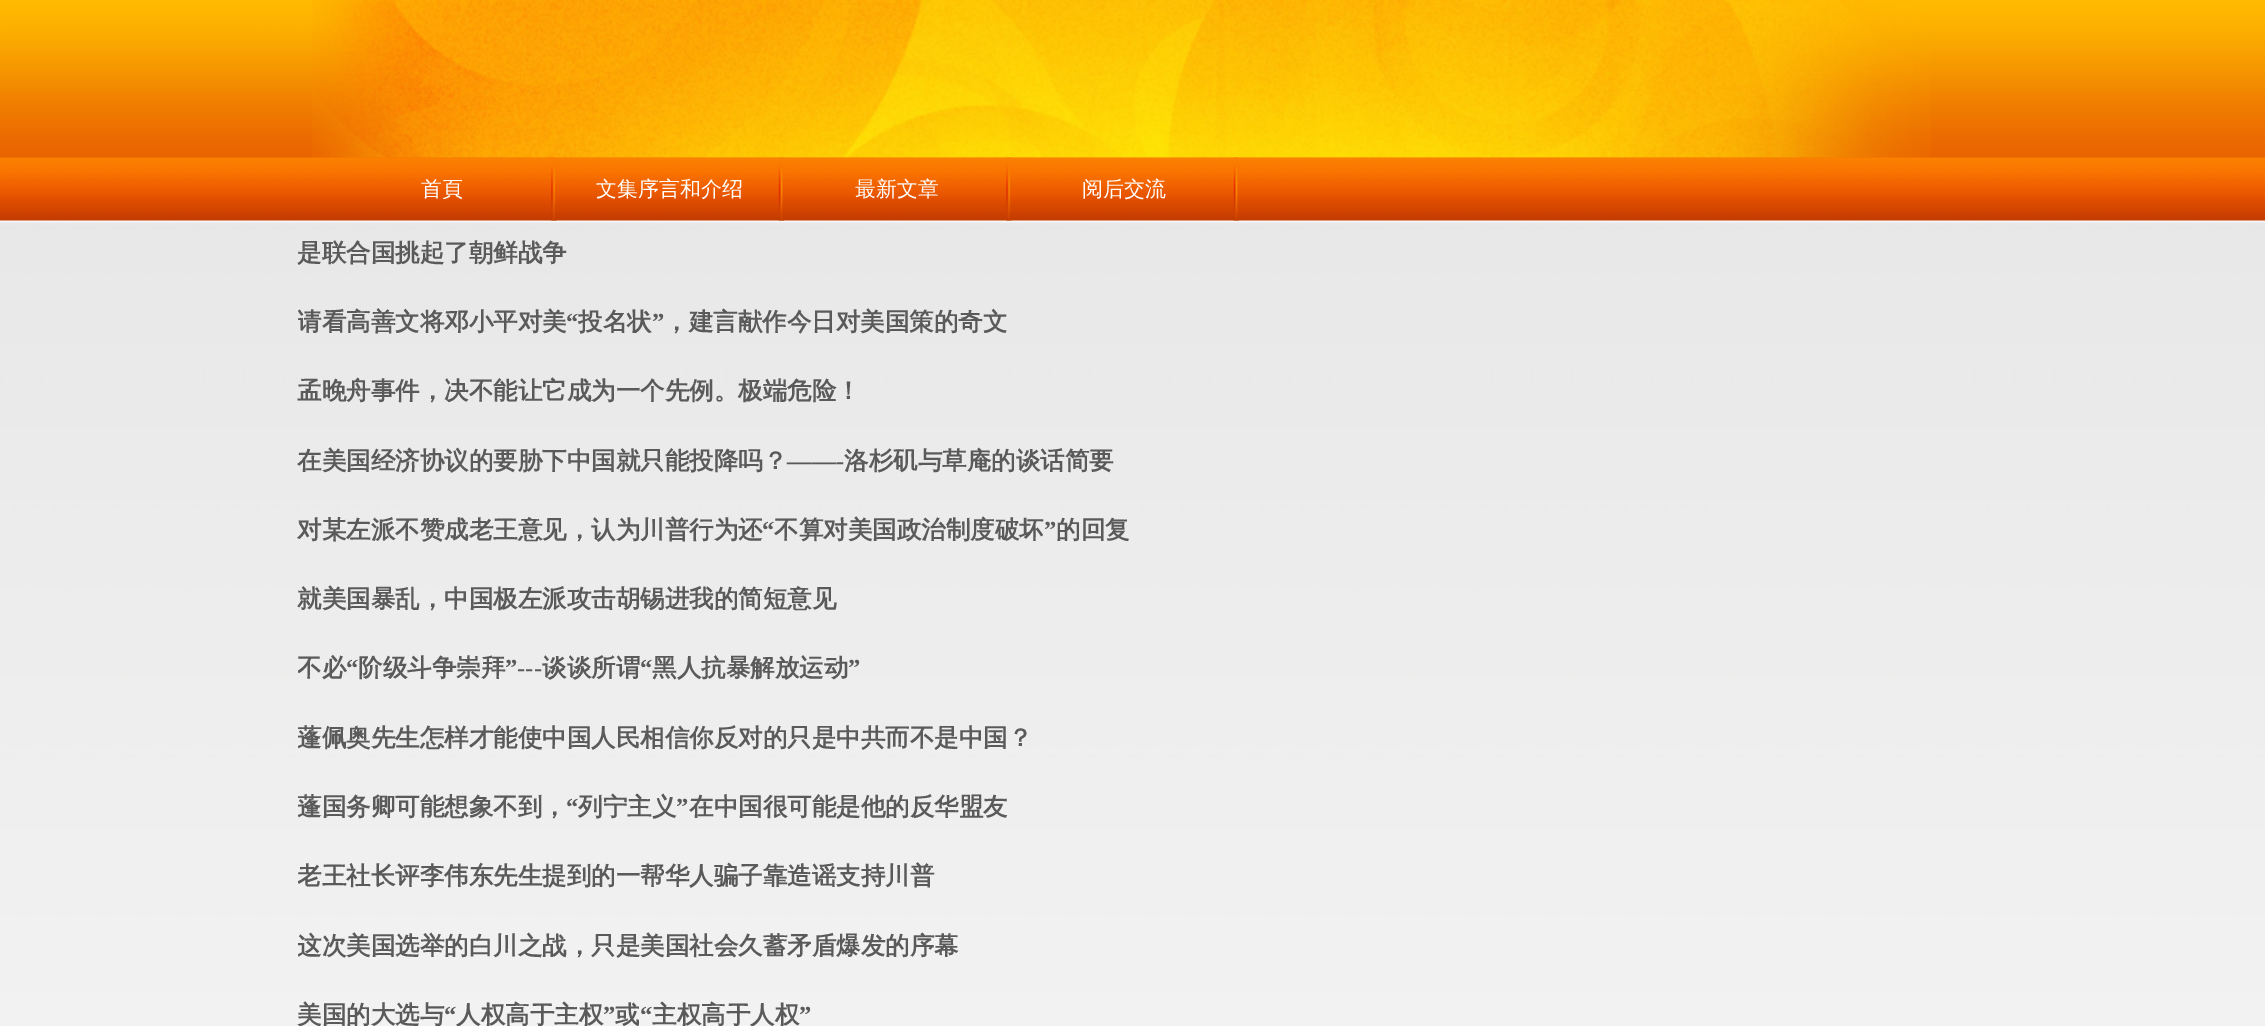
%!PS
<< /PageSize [2265 1026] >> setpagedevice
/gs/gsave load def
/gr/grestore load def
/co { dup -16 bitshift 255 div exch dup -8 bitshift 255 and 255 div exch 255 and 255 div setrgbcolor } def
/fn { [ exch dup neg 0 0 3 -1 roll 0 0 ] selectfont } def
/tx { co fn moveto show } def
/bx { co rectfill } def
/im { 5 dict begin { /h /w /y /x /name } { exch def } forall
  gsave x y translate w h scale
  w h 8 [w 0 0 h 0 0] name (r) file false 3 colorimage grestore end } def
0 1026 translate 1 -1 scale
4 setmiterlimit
0 0 2265 1026 16#F7F7F7 bx
(media/1.raw) 0 0 2265 221 im
(media/2.raw) 312 0 1619 158 im
(media/3.raw) 551 157 6 64 im
(media/4.raw) 778 157 6 64 im
(media/5.raw) 1006 157 6 64 im
(media/6.raw) 1233 157 6 64 im
(media/7.raw) 0 222 2265 804 im
(首頁) 421 196 /WenQuanYiZenHei-Medium 21 16#FFFFFF tx
(文集序言和介绍) 596 196 /WenQuanYiZenHei-Medium 21 16#FFFFFF tx
(最新文章) 855 196 /WenQuanYiZenHei-Medium 21 16#FFFFFF tx
(阅后交流) 1082 196 /WenQuanYiZenHei-Medium 21 16#FFFFFF tx
(是联合国挑起了朝鲜战争) 297 261 /WenQuanYiZenHei-Bold 24.5 16#5A5A5A tx
gs
298 236 1676 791 rectclip
(请看高善文将邓小平对美) 297 330 /WenQuanYiZenHei-Bold 24.5 16#5A5A5A tx
gr
(“) 566 330 /LiberationSerif-Bold 24.5 16#5A5A5A tx
(投名状) 578 330 /WenQuanYiZenHei-Bold 24.5 16#5A5A5A tx
(”) 652 330 /LiberationSerif-Bold 24.5 16#5A5A5A tx
(，建言献作今日对美国策的奇文) 664 330 /WenQuanYiZenHei-Bold 24.5 16#5A5A5A tx
(孟晚舟事件，决不能让它成为一个先例。极端危险！) 297 399 /WenQuanYiZenHei-Bold 24.5 16#5A5A5A tx
(在美国经济协议的要胁下中国就只能投降吗？) 297 469 /WenQuanYiZenHei-Bold 24.5 16#5A5A5A tx
(——-) 787 469 /LiberationSerif-Bold 24.5 16#5A5A5A tx
(洛杉矶与草庵的谈话简要) 844 469 /WenQuanYiZenHei-Bold 24.5 16#5A5A5A tx
(对某左派不赞成老王意见，认为川普行为还) 297 538 /WenQuanYiZenHei-Bold 24.5 16#5A5A5A tx
(“) 762 538 /LiberationSerif-Bold 24.5 16#5A5A5A tx
(不算对美国政治制度破坏) 774 538 /WenQuanYiZenHei-Bold 24.5 16#5A5A5A tx
(”) 1044 538 /LiberationSerif-Bold 24.5 16#5A5A5A tx
(的回复) 1056 538 /WenQuanYiZenHei-Bold 24.5 16#5A5A5A tx
(就美国暴乱，中国极左派攻击胡锡进我的简短意见) 297 607 /WenQuanYiZenHei-Bold 24.5 16#5A5A5A tx
gs
298 236 1676 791 rectclip
(不必) 297 676 /WenQuanYiZenHei-Bold 24.5 16#5A5A5A tx
gr
(“) 346 676 /LiberationSerif-Bold 24.5 16#5A5A5A tx
(阶级斗争崇拜) 358 676 /WenQuanYiZenHei-Bold 24.5 16#5A5A5A tx
(”---) 505 676 /LiberationSerif-Bold 24.5 16#5A5A5A tx
(谈谈所谓) 542 676 /WenQuanYiZenHei-Bold 24.5 16#5A5A5A tx
(“) 640 676 /LiberationSerif-Bold 24.5 16#5A5A5A tx
(黑人抗暴解放运动) 652 676 /WenQuanYiZenHei-Bold 24.5 16#5A5A5A tx
(”) 848 676 /LiberationSerif-Bold 24.5 16#5A5A5A tx
gs
298 236 1676 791 rectclip
(蓬佩奥先生怎样才能使中国人民相信你反对的只是中共而不是中国？) 297 746 /WenQuanYiZenHei-Bold 24.5 16#5A5A5A tx
(蓬国务卿可能想象不到，) 297 815 /WenQuanYiZenHei-Bold 24.5 16#5A5A5A tx
gr
(“) 566 815 /LiberationSerif-Bold 24.5 16#5A5A5A tx
(列宁主义) 578 815 /WenQuanYiZenHei-Bold 24.5 16#5A5A5A tx
(”) 676 815 /LiberationSerif-Bold 24.5 16#5A5A5A tx
(在中国很可能是他的反华盟友) 689 815 /WenQuanYiZenHei-Bold 24.5 16#5A5A5A tx
gs
298 236 1676 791 rectclip
(老王社长评李伟东先生提到的一帮华人骗子靠造谣支持川普) 297 884 /WenQuanYiZenHei-Bold 24.5 16#5A5A5A tx
(这次美国选举的白川之战，只是美国社会久蓄矛盾爆发的序幕) 297 954 /WenQuanYiZenHei-Bold 24.5 16#5A5A5A tx
gr
(美国的大选与) 297 1023 /WenQuanYiZenHei-Bold 24.5 16#5A5A5A tx
(“) 444 1023 /LiberationSerif-Bold 24.5 16#5A5A5A tx
(人权高于主权) 456 1023 /WenQuanYiZenHei-Bold 24.5 16#5A5A5A tx
(”) 603 1023 /LiberationSerif-Bold 24.5 16#5A5A5A tx
(或) 615 1023 /WenQuanYiZenHei-Bold 24.5 16#5A5A5A tx
(“) 640 1023 /LiberationSerif-Bold 24.5 16#5A5A5A tx
(主权高于人权) 652 1023 /WenQuanYiZenHei-Bold 24.5 16#5A5A5A tx
(”) 799 1023 /LiberationSerif-Bold 24.5 16#5A5A5A tx
showpage
